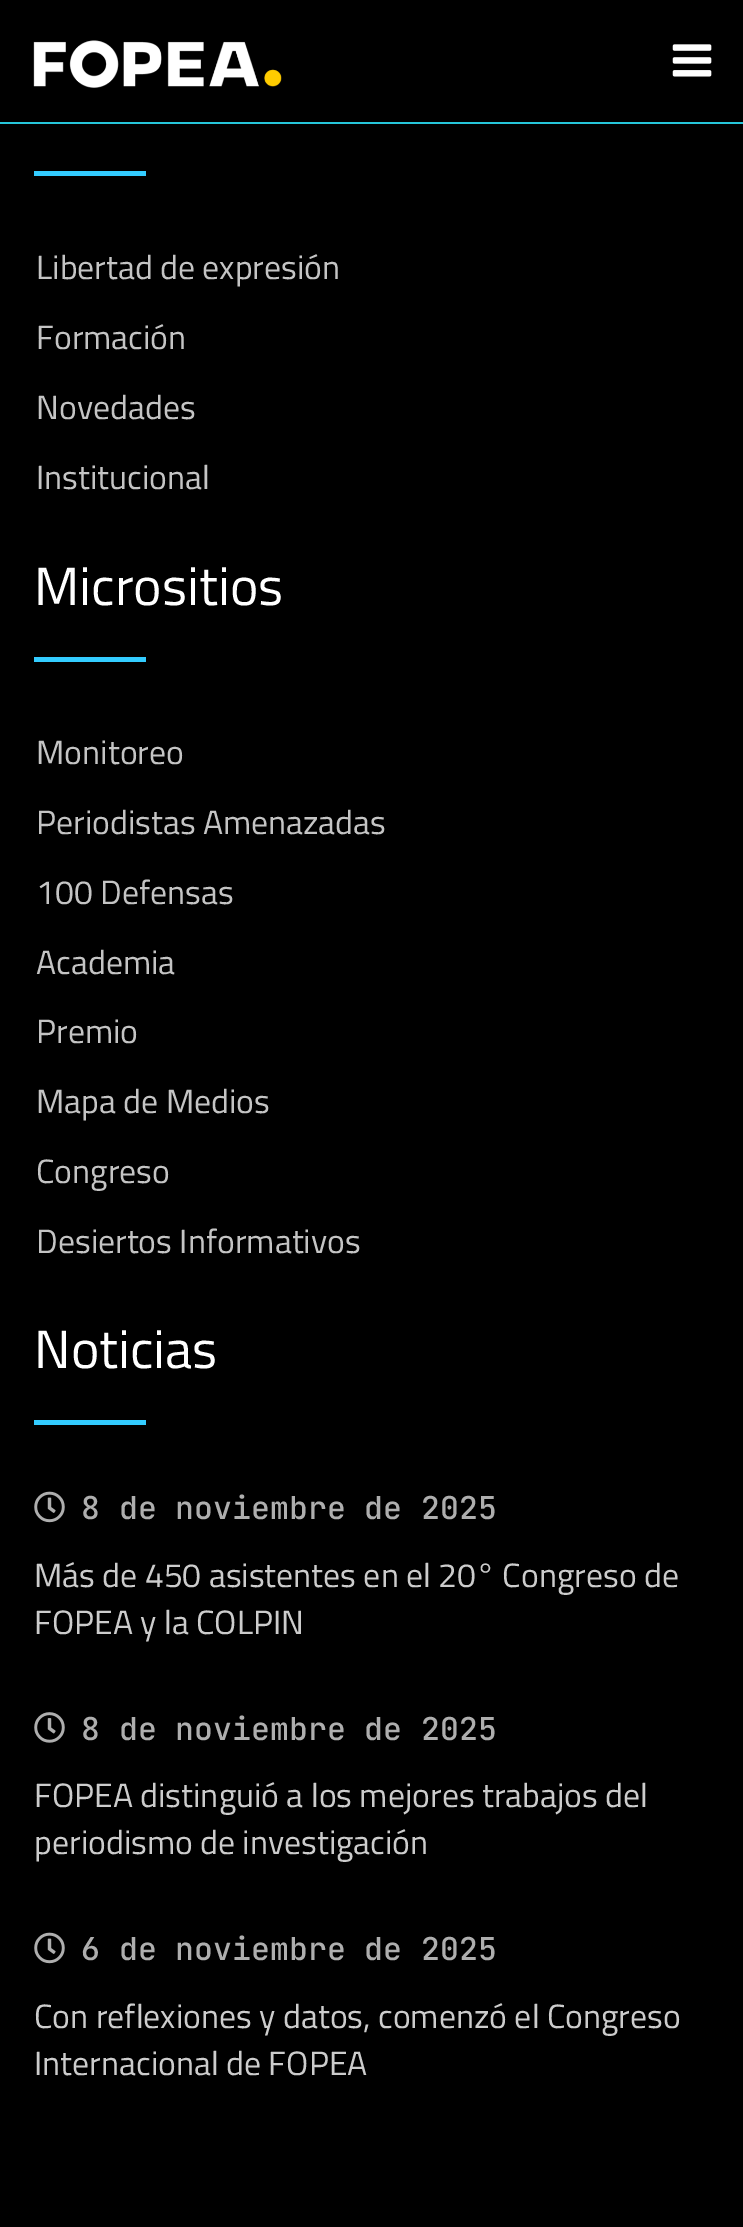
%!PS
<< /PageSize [743 2227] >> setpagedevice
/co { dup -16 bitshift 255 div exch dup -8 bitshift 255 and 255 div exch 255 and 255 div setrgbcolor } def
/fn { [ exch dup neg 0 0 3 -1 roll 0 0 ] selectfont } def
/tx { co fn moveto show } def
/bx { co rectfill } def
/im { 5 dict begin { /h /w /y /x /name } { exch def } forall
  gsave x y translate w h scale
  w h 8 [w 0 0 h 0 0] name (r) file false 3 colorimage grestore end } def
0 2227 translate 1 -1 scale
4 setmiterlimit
0 0 743 2227 16#000000 bx
0 122 743 2 16#26C6DA bx
(media/1.raw) 33 40 249 48 im
(media/2.raw) 672 44 40 33 im
34 171 112 5 16#33CCFF bx
34 657 112 5 16#33CCFF bx
34 1420 112 5 16#33CCFF bx
(media/3.raw) 34 1491 31 32 im
(media/4.raw) 34 1712 31 31 im
(media/3.raw) 34 1932 31 32 im
(Libertad de expresión) 36 279 /TitilliumWeb-Regular 33.75 16#C4C4C4 tx
(Formación) 36 349 /TitilliumWeb-Regular 33.75 16#C4C4C4 tx
(Novedades) 36 419 /TitilliumWeb-Regular 33.75 16#C4C4C4 tx
(Institucional) 36 489 /TitilliumWeb-Regular 33.75 16#C4C4C4 tx
(Micrositios) 34 605 /TitilliumWeb-Regular 54 16#FFFFFF tx
(Monitoreo) 36 764 /TitilliumWeb-Regular 33.75 16#C4C4C4 tx
(Periodistas Amenazadas) 36 834 /TitilliumWeb-Regular 33.75 16#C4C4C4 tx
(100 Defensas) 36 904 /TitilliumWeb-Regular 33.75 16#C4C4C4 tx
(Academia) 36 974 /TitilliumWeb-Regular 33.75 16#C4C4C4 tx
(Premio) 36 1043 /TitilliumWeb-Regular 33.75 16#C4C4C4 tx
(Mapa de Medios) 36 1113 /TitilliumWeb-Regular 33.75 16#C4C4C4 tx
(Congreso) 36 1183 /TitilliumWeb-Regular 33.75 16#C4C4C4 tx
(Desiertos Informativos) 36 1253 /TitilliumWeb-Regular 33.75 16#C4C4C4 tx
(Noticias) 34 1368 /TitilliumWeb-Regular 54 16#FFFFFF tx
(8 de noviembre de 2025) 81 1519 /JetBrainsMono-Medium 31.5 16#AEAEAE tx
(Más de 450 asistentes en el 20° Congreso de) 34 1587 /TitilliumWeb-Regular 33.75 16#CCCCCC tx
(FOPEA y la COLPIN) 34 1634 /TitilliumWeb-Regular 33.75 16#CCCCCC tx
(8 de noviembre de 2025) 81 1740 /JetBrainsMono-Medium 31.5 16#AEAEAE tx
(FOPEA distinguió a los mejores trabajos del) 34 1807 /TitilliumWeb-Regular 33.75 16#CCCCCC tx
(periodismo de investigación) 34 1854 /TitilliumWeb-Regular 33.75 16#CCCCCC tx
(6 de noviembre de 2025) 81 1960 /JetBrainsMono-Medium 31.5 16#AEAEAE tx
(Con reflexiones y datos, comenzó el Congreso) 34 2028 /TitilliumWeb-Regular 33.75 16#CCCCCC tx
(Internacional de FOPEA) 34 2075 /TitilliumWeb-Regular 33.75 16#CCCCCC tx
showpage
